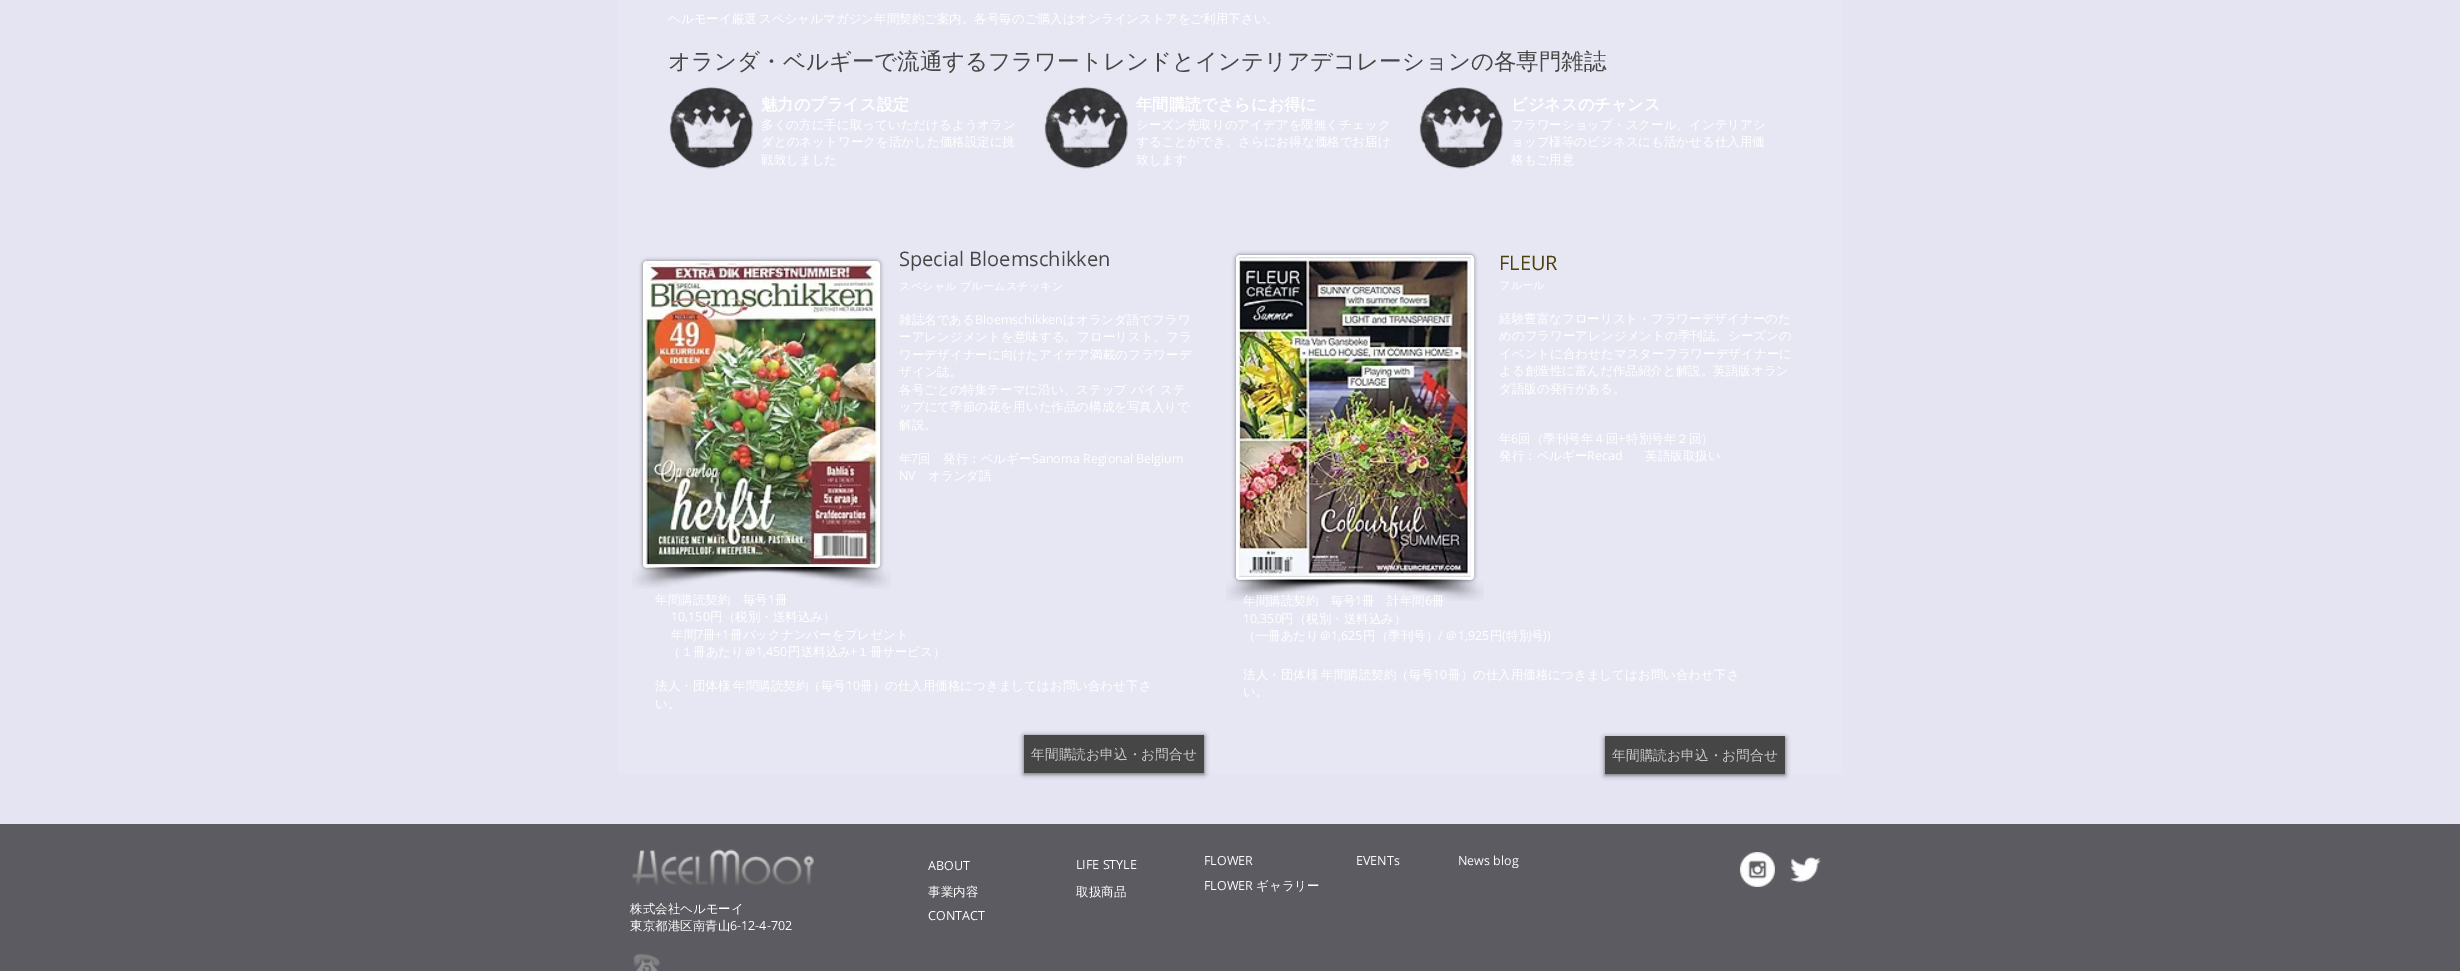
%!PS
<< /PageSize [2460 971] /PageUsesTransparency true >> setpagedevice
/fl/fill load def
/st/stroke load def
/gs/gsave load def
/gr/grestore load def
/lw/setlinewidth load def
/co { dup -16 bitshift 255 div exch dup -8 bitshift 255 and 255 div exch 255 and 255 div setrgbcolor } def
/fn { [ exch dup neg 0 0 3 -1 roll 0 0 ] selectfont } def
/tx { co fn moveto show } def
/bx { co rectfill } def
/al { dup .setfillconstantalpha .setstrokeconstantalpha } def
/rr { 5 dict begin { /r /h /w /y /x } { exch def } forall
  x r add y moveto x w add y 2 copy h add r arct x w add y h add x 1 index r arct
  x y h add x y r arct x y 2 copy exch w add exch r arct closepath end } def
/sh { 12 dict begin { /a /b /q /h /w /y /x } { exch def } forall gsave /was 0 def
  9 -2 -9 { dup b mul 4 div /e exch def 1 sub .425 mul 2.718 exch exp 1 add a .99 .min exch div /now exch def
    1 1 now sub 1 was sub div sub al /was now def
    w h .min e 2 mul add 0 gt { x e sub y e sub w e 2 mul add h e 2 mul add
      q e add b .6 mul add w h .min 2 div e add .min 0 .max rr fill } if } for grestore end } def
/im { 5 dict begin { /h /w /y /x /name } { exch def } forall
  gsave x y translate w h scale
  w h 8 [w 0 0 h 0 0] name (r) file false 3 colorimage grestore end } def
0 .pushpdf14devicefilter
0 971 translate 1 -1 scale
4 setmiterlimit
0 0 2460 971 16#E4E4F3 bx
618 0 1225 774 16#E7E7F4 bx
(media/1.raw) 669 87 84 82 im
(media/2.raw) 1044 87 84 82 im
(media/1.raw) 1419 87 84 82 im
16#000000 co
643 261 237 307 4 2 .5 sh
16#FFFFFF co
644.5 262.5 234 304 2.5 rr gs fl gr
3 lw
st
(media/3.raw) 645 263 232 302 im
(media/4.raw) 632 567 191 22 im
(media/5.raw) 732 567 159 22 im
16#000000 co
1236 255 238 325 4 2 .5 sh
16#FFFFFF co
1237.5 256.5 235 322 2.5 rr st
(media/6.raw) 1239 257 232 320 im
(media/7.raw) 1226 579 185 22 im
(media/8.raw) 1312 579 172 22 im
16#000000 co
1024 736 180 38 0 2.5 .6 sh
1024 735 180 38 16#464646 bx
16#000000 co
1605 738 180 37 0 2.5 .6 sh
1605 736 180 38 16#464646 bx
0 824 2460 147 16#5B5B61 bx
(media/9.raw) 632 849 182 36 im
(media/10.raw) 1740 852 35 35 im
(media/11.raw) 1790 857 31 26 im
(media/12.raw) 633 953 27 18 im
(ヘルモーイ厳選) 668 23 /WenQuanYiZenHei-Medium 12.5 16#FFFFFF tx
(スペシャルマガジン年間契約ご案内。各号毎のご購入はオンラインストアをご利用下さい。) 759 23 /WenQuanYiZenHei-Medium 12.5 16#FFFFFF tx
(オランダ・ベルギーで流通するフラワートレンドとインテリアデコレーションの各専門雑誌) 668 69 /WenQuanYiZenHei-Medium 22.5 16#464646 tx
(魅力のプライス設定) 761 110 /WenQuanYiZenHei-Bold 16.25 16#FFFFFF tx
(多くの方に手に取っていただけるようオラン) 761 129 /WenQuanYiZenHei-Medium 12.5 16#FFFFFF tx
(ダとのネットワークを活かした価格設定に挑) 761 146 /WenQuanYiZenHei-Medium 12.5 16#FFFFFF tx
(戦致しました) 761 164 /WenQuanYiZenHei-Medium 12.5 16#FFFFFF tx
(年間購読でさらにお得に) 1136 110 /WenQuanYiZenHei-Bold 16.25 16#FFFFFF tx
(シーズン先取りのアイデアを隈無くチェック) 1136 129 /WenQuanYiZenHei-Medium 12.5 16#FFFFFF tx
(することができ、さらにお得な価格でお届け) 1136 146 /WenQuanYiZenHei-Medium 12.5 16#FFFFFF tx
(致します) 1136 164 /WenQuanYiZenHei-Medium 12.5 16#FFFFFF tx
(ビジネスのチャンス) 1511 110 /WenQuanYiZenHei-Bold 16.25 16#FFFFFF tx
(フラワーショップ・スクール、インテリアシ) 1511 129 /WenQuanYiZenHei-Medium 12.5 16#FFFFFF tx
(ョップ様等のビジネスにも活かせる仕入用価) 1511 146 /WenQuanYiZenHei-Medium 12.5 16#FFFFFF tx
(格もご用意) 1511 164 /WenQuanYiZenHei-Medium 12.5 16#FFFFFF tx
(Special Bloemschikken) 899 266 /OpenSans-Regular 20 16#464646 tx
(スペシャル ブルームスチッキン) 899 290 /WenQuanYiZenHei-Medium 11.25 16#FFFFFF tx
(雑誌名である) 899 324 /WenQuanYiZenHei-Medium 12.5 16#FFFFFF tx
(Bloemschikken) 975 324 /OpenSans-Regular 12.5 16#FFFFFF tx
(はオランダ語でフラワ) 1063 324 /WenQuanYiZenHei-Medium 12.5 16#FFFFFF tx
(ーアレンジメントを意味する。フローリスト、フラ) 899 341 /WenQuanYiZenHei-Medium 12.5 16#FFFFFF tx
(ワーデザイナーに向けたアイデア満載のフラワーデ) 899 359 /WenQuanYiZenHei-Medium 12.5 16#FFFFFF tx
(ザイン誌。) 899 376 /WenQuanYiZenHei-Medium 12.5 16#FFFFFF tx
(各号ごとの特集テーマに沿い、ステップ バイ ステ) 899 394 /WenQuanYiZenHei-Medium 12.5 16#FFFFFF tx
(ップにて季節の花を用いた作品の構成を写真入りで) 899 411 /WenQuanYiZenHei-Medium 12.5 16#FFFFFF tx
(解説。) 899 429 /WenQuanYiZenHei-Medium 12.5 16#FFFFFF tx
(年) 899 463 /WenQuanYiZenHei-Medium 12.5 16#FFFFFF tx
(7) 911 463 /OpenSans-Regular 12.5 16#FFFFFF tx
(回　発行：ベルギー) 918 463 /WenQuanYiZenHei-Medium 12.5 16#FFFFFF tx
(Sanoma Regional Belgium) 1032 463 /OpenSans-Regular 12.5 16#FFFFFF tx
(NV) 899 480 /OpenSans-Regular 12.5 16#FFFFFF tx
(オランダ語) 928 480 /WenQuanYiZenHei-Medium 12.5 16#FFFFFF tx
(FLEUR) 1499 270 /OpenSans-Regular 20 16#4D410D tx
(フルール) 1499 289 /WenQuanYiZenHei-Medium 11.25 16#FFFFFF tx
(経験豊富なフローリスト・フラワーデザイナーのた) 1499 323 /WenQuanYiZenHei-Medium 12.5 16#FFFFFF tx
(めのフラワーアレンジメントの季刊誌。シーズンの) 1499 340 /WenQuanYiZenHei-Medium 12.5 16#FFFFFF tx
(イベントに合わせたマスターフラワーデザイナーに) 1499 358 /WenQuanYiZenHei-Medium 12.5 16#FFFFFF tx
(よる創造性に富んだ作品紹介と解説。英語版オラン) 1499 375 /WenQuanYiZenHei-Medium 12.5 16#FFFFFF tx
(ダ語版の発行がある。) 1499 393 /WenQuanYiZenHei-Medium 12.5 16#FFFFFF tx
(年) 1499 443 /WenQuanYiZenHei-Medium 12.5 16#FFFFFF tx
(6) 1511 443 /OpenSans-Regular 12.5 16#FFFFFF tx
(回（季刊号年４回) 1518 443 /WenQuanYiZenHei-Medium 12.5 16#FFFFFF tx
(+) 1618 443 /OpenSans-Regular 12.5 16#FFFFFF tx
(特別号年２回）) 1626 443 /WenQuanYiZenHei-Medium 12.5 16#FFFFFF tx
(発行：ベルギー) 1499 460 /WenQuanYiZenHei-Medium 12.5 16#FFFFFF tx
(Recad) 1587 460 /OpenSans-Regular 12.5 16#FFFFFF tx
(英語版取扱い) 1645 460 /WenQuanYiZenHei-Medium 12.5 16#FFFFFF tx
(年間購読契約　毎号) 655 604 /WenQuanYiZenHei-Medium 12.5 16#FFFFFF tx
(1) 768 604 /OpenSans-Regular 12.5 16#FFFFFF tx
(冊) 775 604 /WenQuanYiZenHei-Medium 12.5 16#FFFFFF tx
(10,150) 671 621 /OpenSans-Regular 12.5 16#FFFFFF tx
(円（税別・送料込み）) 710 621 /WenQuanYiZenHei-Medium 12.5 16#FFFFFF tx
(年間) 671 639 /WenQuanYiZenHei-Medium 12.5 16#FFFFFF tx
(7) 696 639 /OpenSans-Regular 12.5 16#FFFFFF tx
(冊) 703 639 /WenQuanYiZenHei-Medium 12.5 16#FFFFFF tx
(+1) 715 639 /OpenSans-Regular 12.5 16#FFFFFF tx
(冊バックナンバーをプレゼント) 730 639 /WenQuanYiZenHei-Medium 12.5 16#FFFFFF tx
(（１冊あたり＠) 668 656 /WenQuanYiZenHei-Medium 12.5 16#FFFFFF tx
(1,450) 756 656 /OpenSans-Regular 12.5 16#FFFFFF tx
(円送料込み) 788 656 /WenQuanYiZenHei-Medium 12.5 16#FFFFFF tx
(+) 850 656 /OpenSans-Regular 12.5 16#FFFFFF tx
(１冊サービス）) 857 656 /WenQuanYiZenHei-Medium 12.5 16#FFFFFF tx
(法人・団体様) 655 690 /WenQuanYiZenHei-Medium 12.5 16#FFFFFF tx
(年間購読契約（毎号) 733 690 /WenQuanYiZenHei-Medium 12.5 16#FFFFFF tx
(10) 846 690 /OpenSans-Regular 12.5 16#FFFFFF tx
(冊）の仕入用価格につきましてはお問い合わせ下さ) 860 690 /WenQuanYiZenHei-Medium 12.5 16#FFFFFF tx
(い。) 655 708 /WenQuanYiZenHei-Medium 12.5 16#FFFFFF tx
(年間購読契約　毎号) 1243 605 /WenQuanYiZenHei-Medium 12.5 16#FFFFFF tx
(1) 1355 605 /OpenSans-Regular 12.5 16#FFFFFF tx
(冊　計年間) 1362 605 /WenQuanYiZenHei-Medium 12.5 16#FFFFFF tx
(6) 1425 605 /OpenSans-Regular 12.5 16#FFFFFF tx
(冊) 1432 605 /WenQuanYiZenHei-Medium 12.5 16#FFFFFF tx
(10,350) 1243 623 /OpenSans-Regular 12.5 16#FFFFFF tx
(円（税別・送料込み）) 1281 623 /WenQuanYiZenHei-Medium 12.5 16#FFFFFF tx
(（一冊あたり＠) 1243 640 /WenQuanYiZenHei-Medium 12.5 16#FFFFFF tx
(1,625) 1331 640 /OpenSans-Regular 12.5 16#FFFFFF tx
(円（季刊号）) 1363 640 /WenQuanYiZenHei-Medium 12.5 16#FFFFFF tx
(/) 1438 640 /OpenSans-Regular 12.5 16#FFFFFF tx
(＠) 1445 640 /WenQuanYiZenHei-Medium 12.5 16#FFFFFF tx
(1,925) 1458 640 /OpenSans-Regular 12.5 16#FFFFFF tx
(円) 1490 640 /WenQuanYiZenHei-Medium 12.5 16#FFFFFF tx
(\() 1502 640 /OpenSans-Regular 12.5 16#FFFFFF tx
(特別号) 1506 640 /WenQuanYiZenHei-Medium 12.5 16#FFFFFF tx
(\)\)) 1543 640 /OpenSans-Regular 12.5 16#FFFFFF tx
(法人・団体様) 1243 679 /WenQuanYiZenHei-Medium 12.5 16#FFFFFF tx
(年間購読契約（毎号) 1321 679 /WenQuanYiZenHei-Medium 12.5 16#FFFFFF tx
(10) 1433 679 /OpenSans-Regular 12.5 16#FFFFFF tx
(冊）の仕入用価格につきましてはお問い合わせ下さ) 1448 679 /WenQuanYiZenHei-Medium 12.5 16#FFFFFF tx
(い。) 1243 696 /WenQuanYiZenHei-Medium 12.5 16#FFFFFF tx
(年間購読お申込・お問合せ) 1031 759 /WenQuanYiZenHei-Medium 13.75 16#CACACA tx
(年間購読お申込・お問合せ) 1612 760 /WenQuanYiZenHei-Medium 13.75 16#CACACA tx
(ABOUT) 928 870 /OpenSans-Regular 12.5 16#FFFFFF tx
(LIFE STYLE) 1076 869 /OpenSans-Regular 12.5 16#FFFFFF tx
(FLOWER) 1204 865 /OpenSans-Regular 12.5 16#FFFFFF tx
(EVENTs) 1356 865 /OpenSans-Regular 12.5 16#FFFFFF tx
(News blog) 1458 865 /OpenSans-Regular 12.5 16#FFFFFF tx
(事業内容) 928 896 /WenQuanYiZenHei-Medium 12.5 16#FFFFFF tx
(取扱商品) 1076 896 /WenQuanYiZenHei-Medium 12.5 16#FFFFFF tx
(FLOWER) 1204 890 /OpenSans-Regular 12.5 16#FFFFFF tx
(ギャラリー) 1256 890 /WenQuanYiZenHei-Medium 12.5 16#FFFFFF tx
(株式会社ヘルモーイ) 630 913 /WenQuanYiZenHei-Medium 12.5 16#FFFFFF tx
(東京都港区南青山) 630 930 /WenQuanYiZenHei-Medium 12.5 16#FFFFFF tx
(6-12-4-702) 730 930 /OpenSans-Regular 12.5 16#FFFFFF tx
(CONTACT) 928 920 /OpenSans-Regular 12.5 16#FFFFFF tx
.poppdf14devicefilter showpage
